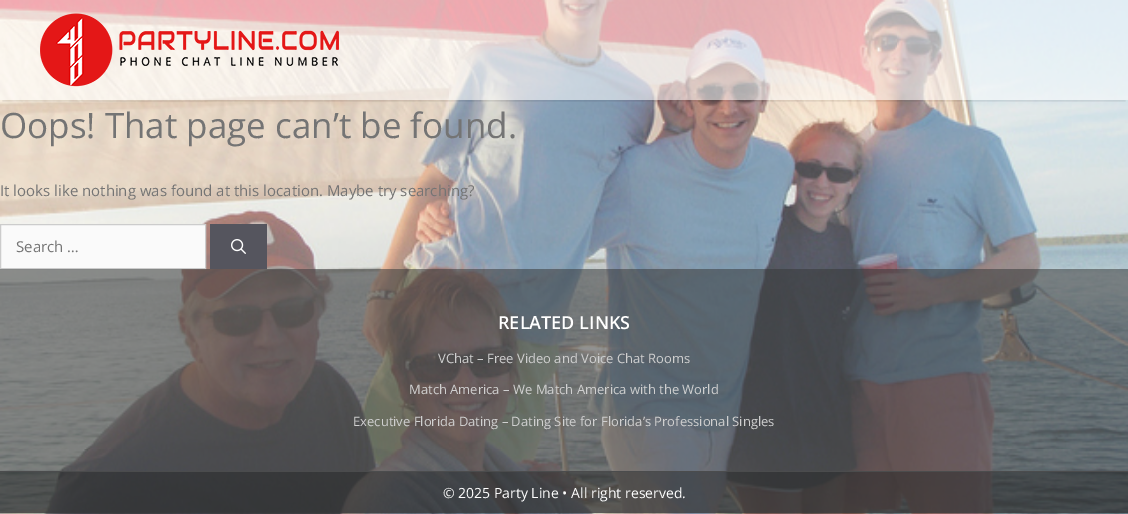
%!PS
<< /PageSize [1128 514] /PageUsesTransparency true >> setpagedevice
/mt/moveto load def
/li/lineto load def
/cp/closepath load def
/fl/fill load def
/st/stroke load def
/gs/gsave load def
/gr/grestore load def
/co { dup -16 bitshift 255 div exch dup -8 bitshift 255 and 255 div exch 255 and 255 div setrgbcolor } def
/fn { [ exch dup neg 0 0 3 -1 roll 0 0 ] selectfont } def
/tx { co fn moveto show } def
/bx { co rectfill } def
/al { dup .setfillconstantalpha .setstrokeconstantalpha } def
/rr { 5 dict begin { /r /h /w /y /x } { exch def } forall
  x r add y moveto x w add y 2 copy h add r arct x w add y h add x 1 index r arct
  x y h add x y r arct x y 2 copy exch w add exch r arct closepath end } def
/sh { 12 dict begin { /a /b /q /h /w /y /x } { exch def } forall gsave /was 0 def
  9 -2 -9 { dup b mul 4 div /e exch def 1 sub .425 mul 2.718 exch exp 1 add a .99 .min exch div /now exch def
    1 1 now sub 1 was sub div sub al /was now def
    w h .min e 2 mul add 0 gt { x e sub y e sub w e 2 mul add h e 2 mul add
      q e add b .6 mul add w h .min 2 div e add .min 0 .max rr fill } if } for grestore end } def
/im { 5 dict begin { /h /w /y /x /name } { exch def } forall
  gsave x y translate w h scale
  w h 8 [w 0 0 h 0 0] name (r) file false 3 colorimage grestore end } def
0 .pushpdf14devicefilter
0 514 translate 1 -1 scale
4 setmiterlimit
0 0 1128 514 16#FFFFFF bx
(media/1.raw) 0 0 1128 514 im
gs
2 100 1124 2 rectclip
16#000000 co
3 7 1122 94 0 1.5 .12 sh
gr
0.55 al
0 0 1128 100 16#FFFFFF bx
1 al
(media/2.raw) 40 13 299 74 im
16#FAFAFA co
.5 224.5 mt 205.5 224.5 li 205.5 268.5 li .5 268.5 li cp gs fl gr
16#CCCCCC co
st
210 224 57 45 16#55555E bx
(media/3.raw) 231 239 15 15 im
0.54 al
0 269 1128 202 16#363839 bx
0.75 al
0 472 1128 41 16#282A2B bx
1 al
0 471 1128 1 16#4B4C4D bx
(Oops! That page can’t be found.) 0 138 /OpenSans-Regular 35 16#747474 tx
(It looks like nothing was found at this location. Maybe try searching?) 0 196 /OpenSans-Regular 15 16#747474 tx
(Search …) 16 252 /OpenSans-Regular 15 16#747474 tx
(RELATED LINKS) 498 329 /OpenSans-SemiBold 18 16#FFFFFF tx
(VChat – Free Video and Voice Chat Rooms) 438 363 /OpenSans-Regular 13 16#D0D0D0 tx
(Match America – We Match America with the World) 409 394 /OpenSans-Regular 13 16#D0D0D0 tx
(Executive Florida Dating – Dating Site for Florida’s Professional Singles) 353 426 /OpenSans-Regular 13 16#D0D0D0 tx
(© 2025 Party Line • All right reserved.) 443 498 /OpenSans-Regular 14 16#FFFFFF tx
.poppdf14devicefilter showpage
